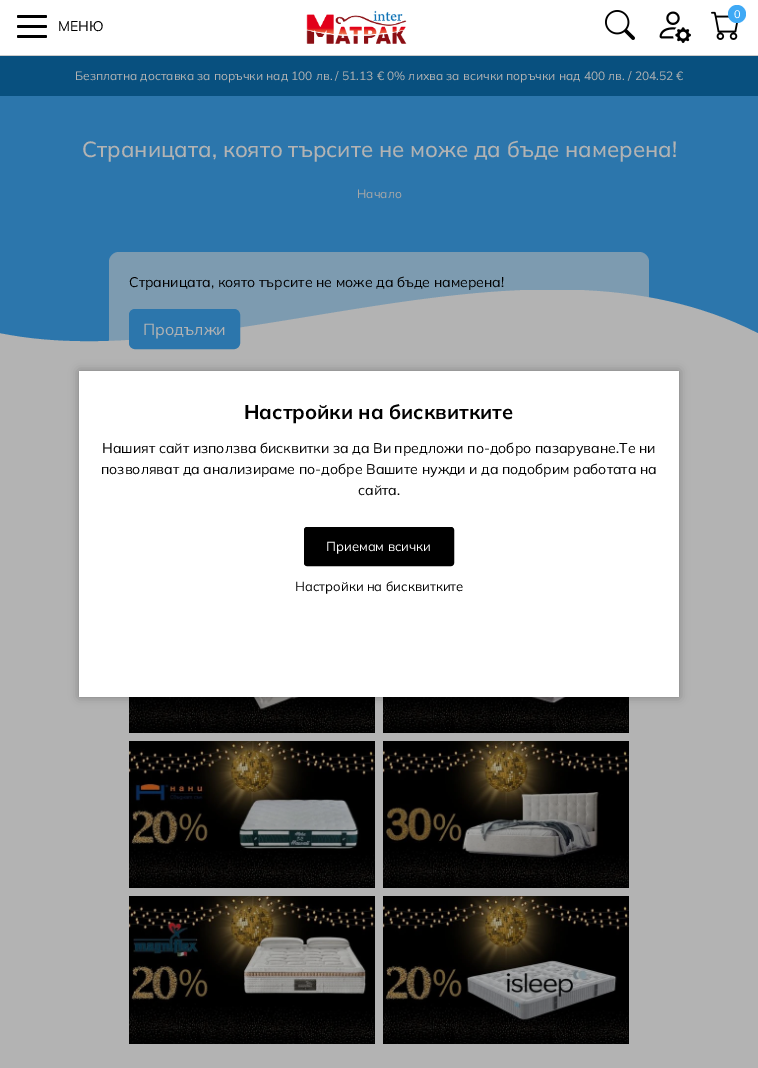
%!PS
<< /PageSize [758 1068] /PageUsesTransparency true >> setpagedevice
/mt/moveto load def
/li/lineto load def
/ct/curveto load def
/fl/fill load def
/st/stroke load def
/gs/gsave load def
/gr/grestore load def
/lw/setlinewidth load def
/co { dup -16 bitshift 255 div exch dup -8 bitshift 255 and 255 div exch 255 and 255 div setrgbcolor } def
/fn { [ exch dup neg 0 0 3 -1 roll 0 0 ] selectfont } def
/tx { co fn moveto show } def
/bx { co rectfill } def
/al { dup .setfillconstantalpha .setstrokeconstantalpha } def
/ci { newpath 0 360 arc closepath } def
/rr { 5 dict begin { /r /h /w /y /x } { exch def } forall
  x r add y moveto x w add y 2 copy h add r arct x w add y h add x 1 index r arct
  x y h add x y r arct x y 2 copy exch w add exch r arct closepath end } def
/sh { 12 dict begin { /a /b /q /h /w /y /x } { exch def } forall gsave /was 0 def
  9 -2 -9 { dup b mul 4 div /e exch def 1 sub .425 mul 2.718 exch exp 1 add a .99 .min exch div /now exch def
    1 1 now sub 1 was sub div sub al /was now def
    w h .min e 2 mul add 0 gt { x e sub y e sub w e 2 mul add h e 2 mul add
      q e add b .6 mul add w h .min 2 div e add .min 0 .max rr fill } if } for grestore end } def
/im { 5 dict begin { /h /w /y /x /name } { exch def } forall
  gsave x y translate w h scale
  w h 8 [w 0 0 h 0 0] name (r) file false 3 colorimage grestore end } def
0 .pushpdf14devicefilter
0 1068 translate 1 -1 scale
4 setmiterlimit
0 0 758 1068 16#B3B3B3 bx
0 0 758 55 16#FFFFFF bx
0 55 758 1 16#CCCCCC bx
(media/1.raw) 306 10 101 34 im
(media/2.raw) 605 10 30 30 im
(media/3.raw) 659 11 32 32 im
(media/4.raw) 711 11 28 29 im
16#3FA9F5 co
737 14 9 ci fl
16#000000 co
17 15 30 3 1.5 rr fl
17 25 30 3 1.5 rr fl
17 35 30 3 1.5 rr fl
0 56 758 40 16#08507F bx
0 96 758 194 16#2C76AC bx
0 333 mt 221 378 528 215 758 333 ct 758 289 li 0 289 li fl
0.6 al
16#B3B3B3 co
109 252 540 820 10 rr fl
1 al
16#2C76AC co
130 310 109 38 5 rr gs fl gr
2 lw
st
(media/5.raw) 129 697 246 36 im
(media/6.raw) 383 697 246 36 im
(media/7.raw) 129 741 246 147 im
(media/8.raw) 383 741 246 147 im
(media/9.raw) 129 896 246 148 im
(media/10.raw) 383 896 246 148 im
16#000000 co
79 371 600 326 0 5 .3 sh
79 371 600 326 16#FFFFFF bx
16#000000 co
304.5 527.5 149 38 2.5 rr gs fl gr
1 lw
st
(0) 734 18 /Mulish-Regular 11 16#FFFFFF tx
(МЕНЮ) 58 31 /Mulish-Regular 14 16#000000 tx
(Безплатна доставка за поръчки над 100 лв. / 51.13 € 0% лихва за всички поръчки над 400 лв. / 204.52 €) 75 80 /Mulish-Regular 12 16#B3B3B3 tx
(Страницата, която търсите не може да бъде намерена!) 82 157 /Mulish-Medium 22 16#B3B3B3 tx
(Начало) 357 198 /Mulish-Regular 12 16#A7A7A7 tx
(Страницата, която търсите не може да бъде намерена!) 129 287 /Mulish-Regular 14 16#000000 tx
(Продължи) 143 335 /Mulish-Regular 16 16#B3B3B3 tx
(Настройки на бисквитките) 244 419 /Mulish-Bold 20 16#000000 tx
(Нашият сайт използва бисквитки за да Ви предложи по-добро пазаруване.Те ни) 102 453 /Mulish-Regular 14 16#000000 tx
(позволяват да анализираме по-добре Вашите нужди и да подобрим работата на) 101 474 /Mulish-Regular 14 16#000000 tx
(сайта.) 358 495 /Mulish-Regular 14 16#000000 tx
(Приемам всички) 326 551 /Mulish-Regular 13 16#FFFFFF tx
(Настройки на бисквитките) 295 591 /Mulish-Regular 13 16#000000 tx
.poppdf14devicefilter showpage
